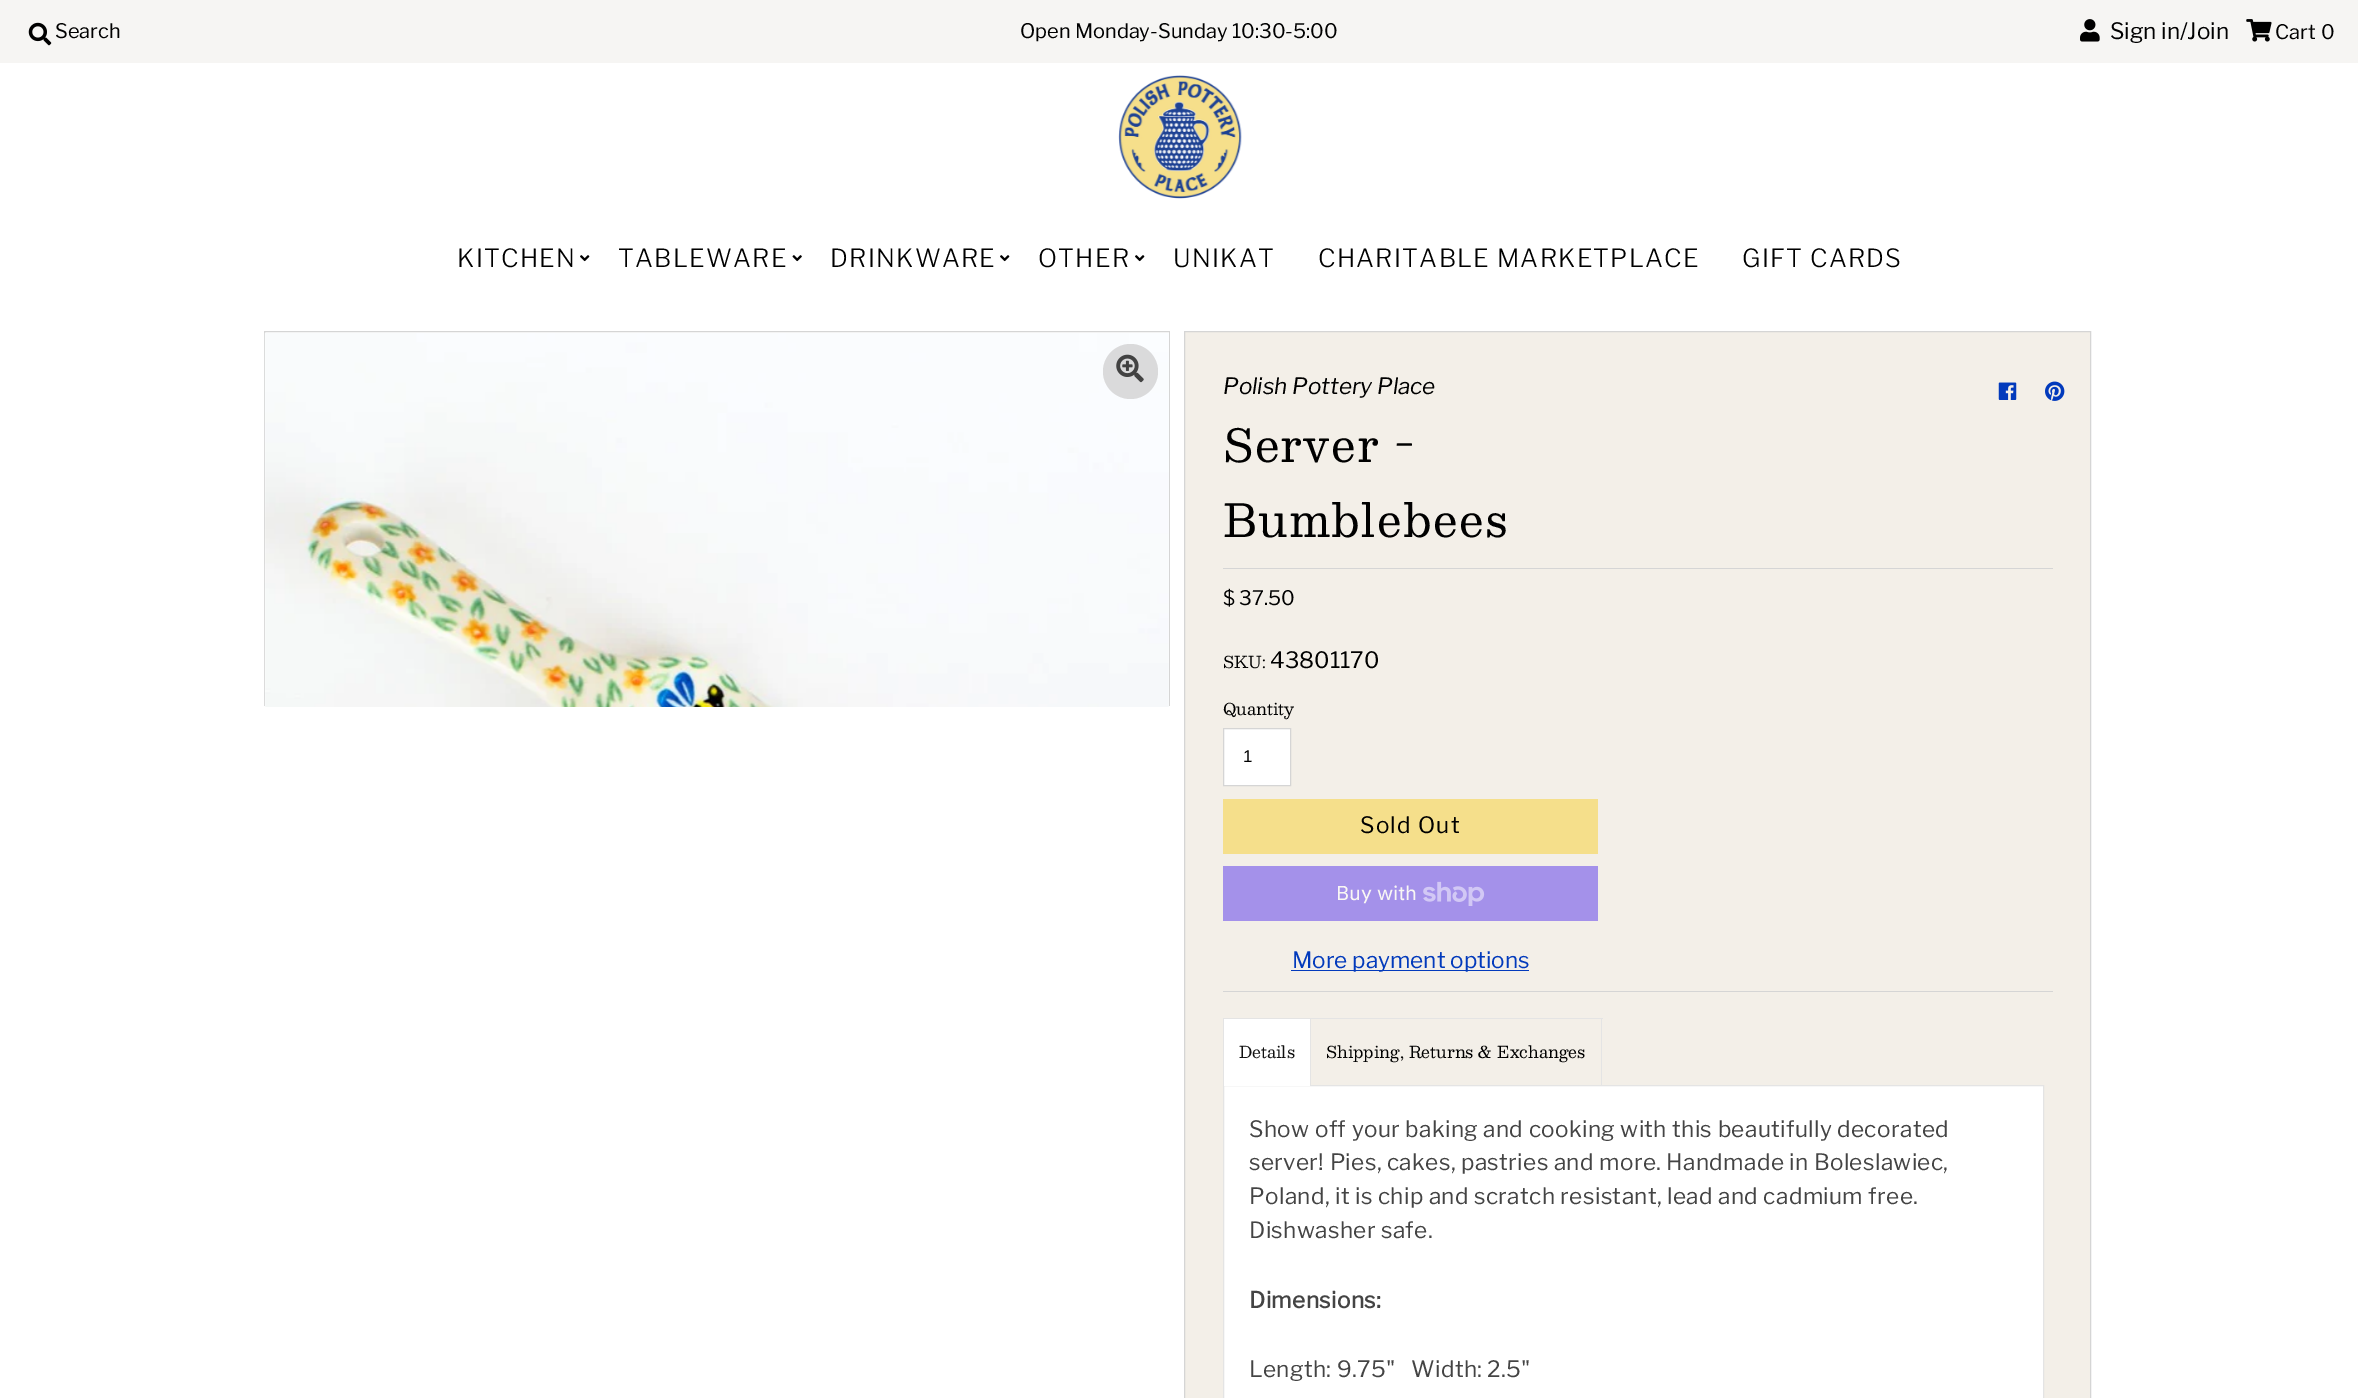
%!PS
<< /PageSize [2358 1398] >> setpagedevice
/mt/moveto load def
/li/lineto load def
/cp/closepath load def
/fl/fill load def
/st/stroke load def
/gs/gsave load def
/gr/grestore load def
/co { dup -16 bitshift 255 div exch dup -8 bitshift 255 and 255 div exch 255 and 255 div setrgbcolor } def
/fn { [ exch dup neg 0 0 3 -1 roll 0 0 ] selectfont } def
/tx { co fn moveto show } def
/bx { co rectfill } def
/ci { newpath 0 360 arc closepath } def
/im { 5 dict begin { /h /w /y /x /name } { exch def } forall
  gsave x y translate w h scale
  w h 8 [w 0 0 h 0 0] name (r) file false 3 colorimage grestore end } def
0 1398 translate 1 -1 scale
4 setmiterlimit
0 0 2358 1398 16#FFFFFF bx
0 0 2358 63 16#F6F5F3 bx
(media/1.raw) 28 22 24 24 im
(media/2.raw) 2080 19 20 23 im
(media/3.raw) 2246 19 26 23 im
(media/4.raw) 1118 75 124 124 im
(media/5.raw) 580 255 10 7 im
(media/6.raw) 792 255 10 7 im
(media/5.raw) 1000 255 10 7 im
(media/5.raw) 1135 255 10 7 im
gs
264 331 906 375 rectclip
16#D5D5D5 co
264.5 331.5 905 904 rectstroke
gr
(media/7.raw) 264 333 905 374 im
16#DADADB co
1130.5 371.5 27.5 ci fl
(media/8.raw) 1116 354 28 29 im
16#F3EFE8 co
1184.5 331.5 mt 2090.5 331.5 li 2090.5 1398.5 li 1184.5 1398.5 li cp gs fl gr
16#D5D5D5 co
st
(media/9.raw) 1998 382 19 18 im
(media/10.raw) 2045 381 20 20 im
1223 568 830 1 16#D5D5D5 bx
1223 991 830 1 16#D5D5D5 bx
16#FFFFFF co
1223.5 728.5 mt 1290.5 728.5 li 1290.5 785.5 li 1223.5 785.5 li cp gs fl gr
16#D5D5D5 co
st
1223 799 375 55 16#F5DF8B bx
1223 866 375 55 16#A491EA bx
(media/11.raw) 1423 881 62 25 im
1291 970 238 1 16#023ABC bx
16#FFFFFF co
1223.5 1085.5 mt 2043.5 1085.5 li 2043.5 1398.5 li 1223.5 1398.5 li cp gs fl gr
16#E4E4E4 co
st
1224 1019 86 67 16#FFFFFF bx
1223 1018 380 1 16#E4E4E4 bx
1310 1018 1 67 16#E4E4E4 bx
1223 1018 1 67 16#E4E4E4 bx
1601 1018 1 67 16#E4E4E4 bx
(Search) 55 38 /LibreFranklin-Regular 20 16#000000 tx
(Open Monday-Sunday 10:30-5:00) 1020 38 /LibreFranklin-Regular 20 16#000000 tx
(Sign in/Join) 2110 39 /LibreFranklin-Regular 22.5 16#000000 tx
(Cart) 2275 39 /LibreFranklin-Regular 20 16#000000 tx
(0) 2321 39 /LibreFranklin-Regular 20 16#000000 tx
/LibreFranklin-Light 25 fn
457 267 mt 1.25 0 (KITCHEN) ashow
618 267 mt 1.25 0 (TABLEWARE) ashow
830 267 mt 1.25 0 (DRINKWARE) ashow
1038 267 mt 1.25 0 (OTHER) ashow
1173 267 mt 1.25 0 (UNIKAT) ashow
1318 267 mt 1.25 0 (CHARITABLE MARKETPLACE) ashow
1742 267 mt 1.25 0 (GIFT CARDS) ashow
(Polish Pottery Place) 1223 394 /LibreFranklin-Italic 22.5 16#000000 tx
/Besley-Regular 45 fn
1223 462 mt 1.25 0 (Server -) ashow
1223 537 mt 1.25 0 (Bumblebees) ashow
($ 37.50) 1223 605 /LibreFranklin-Regular 20 16#000000 tx
(SKU:) 1223 668 /Besley-Regular 16.25 16#000000 tx
(43801170) 1270 668 /LibreFranklin-Regular 22.5 16#000000 tx
(Quantity) 1223 715 /Besley-Regular 16.25 16#000000 tx
(1) 1243 762 /LiberationSans-Regular 17 16#000000 tx
/LibreFranklin-Regular 22.5 fn
1360 833 mt 1.25 0 (Sold Out) ashow
(Buy with) 1336 900 /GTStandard-Regular 20 16#F9F7F4 tx
(More payment options) 1292 968 /LibreFranklin-Regular 22.5 16#023ABC tx
(Details) 1239 1058 /Besley-Regular 16.25 16#111111 tx
(Shipping, Returns & Exchanges) 1326 1058 /Besley-Regular 16.25 16#000000 tx
/LibreFranklin-Regular 22.5 fn
16#444444 co
1249 1137 mt .38 0 (Show off your baking and cooking with this beautifully decorated) ashow
1249 1170 mt .38 0 (server! Pies, cakes, pastries and more. Handmade in Boleslawiec,) ashow
1249 1204 mt .38 0 (Poland, it is chip and scratch resistant, lead and cadmium free.) ashow
1249 1238 mt .38 0 (Dishwasher safe.) ashow
/LibreFranklin-Bold 22.5 fn
1249 1308 mt .38 0 (Dimensions:) ashow
/LibreFranklin-Regular 22.5 fn
1249 1377 mt .38 0 (Length: 9.75"   Width: 2.5") ashow
showpage
